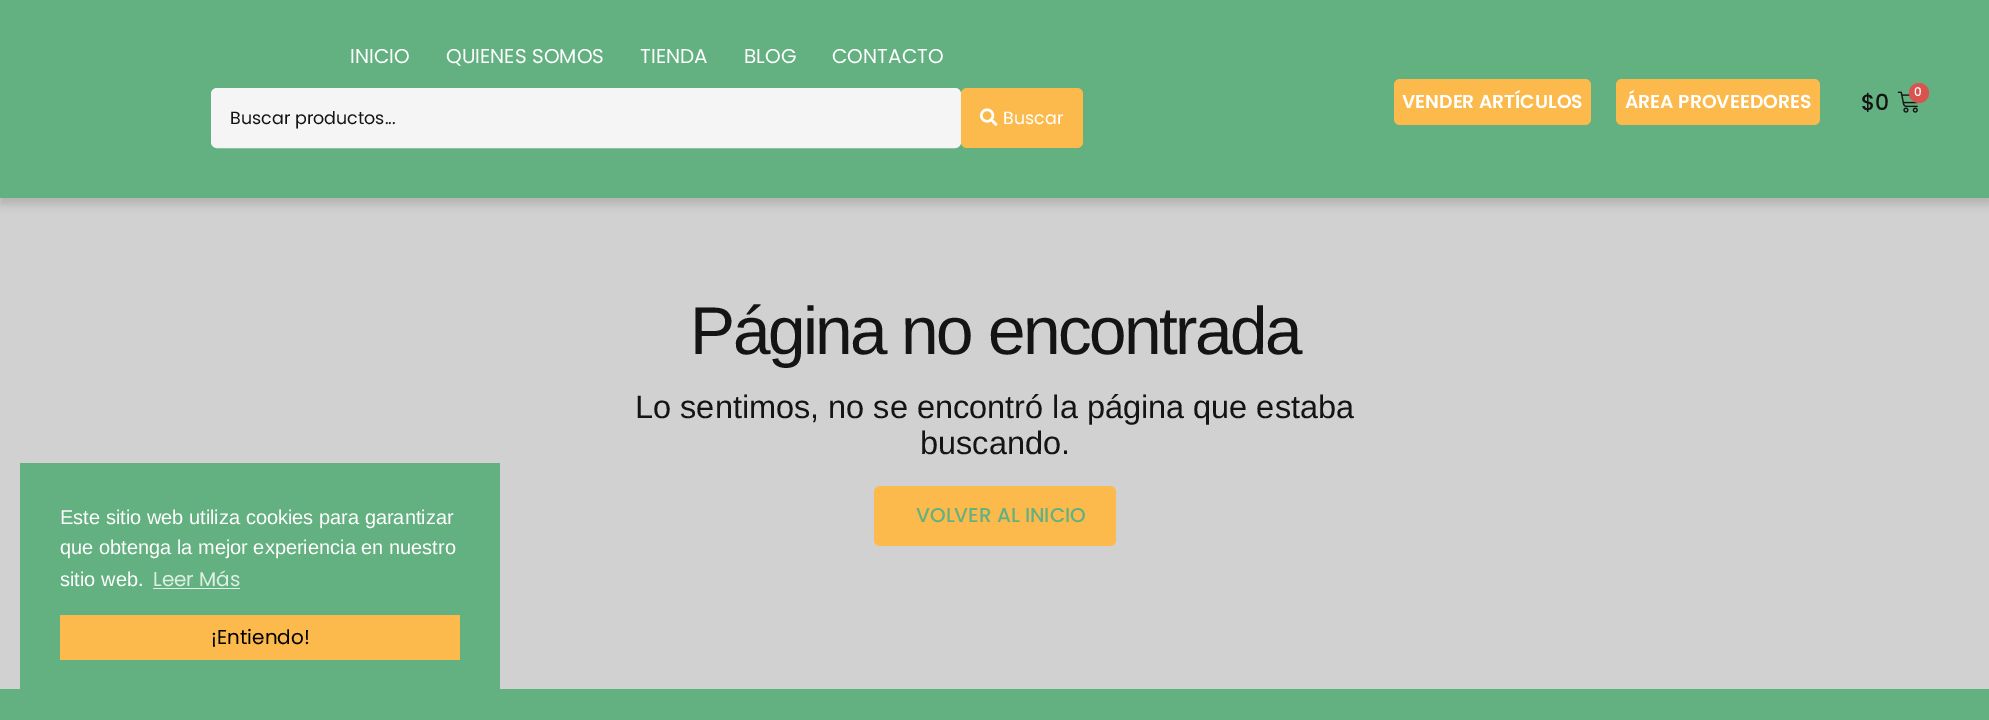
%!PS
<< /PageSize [1989 720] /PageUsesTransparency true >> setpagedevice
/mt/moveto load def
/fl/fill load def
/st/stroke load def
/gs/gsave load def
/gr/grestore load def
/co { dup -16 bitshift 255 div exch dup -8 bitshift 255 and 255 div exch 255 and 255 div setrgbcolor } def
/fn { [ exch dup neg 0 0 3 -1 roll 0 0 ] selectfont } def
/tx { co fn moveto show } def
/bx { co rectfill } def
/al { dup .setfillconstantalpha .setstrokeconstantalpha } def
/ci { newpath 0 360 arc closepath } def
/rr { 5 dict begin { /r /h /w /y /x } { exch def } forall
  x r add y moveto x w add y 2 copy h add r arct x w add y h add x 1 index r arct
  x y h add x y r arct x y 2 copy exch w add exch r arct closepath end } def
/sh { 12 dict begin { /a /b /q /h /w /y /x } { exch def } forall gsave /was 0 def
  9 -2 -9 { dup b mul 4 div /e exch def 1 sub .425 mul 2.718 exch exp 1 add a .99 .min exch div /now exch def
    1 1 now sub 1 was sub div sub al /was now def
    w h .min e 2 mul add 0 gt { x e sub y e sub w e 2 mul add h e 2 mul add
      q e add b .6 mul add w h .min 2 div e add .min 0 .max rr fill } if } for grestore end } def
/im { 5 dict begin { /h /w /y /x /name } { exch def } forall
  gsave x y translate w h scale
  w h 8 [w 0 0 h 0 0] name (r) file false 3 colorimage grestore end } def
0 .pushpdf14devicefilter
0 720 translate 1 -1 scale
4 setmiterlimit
0 0 1989 720 16#D1D1D1 bx
16#000000 co
0 6 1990 198 0 4.5 .15 sh
0 0 1989 198 16#63B080 bx
16#F5F5F5 co
211.5 88.5 749 59 5.5 rr gs fl gr
st
16#FCBA4D co
961 88 122 60 6 rr fl
(media/1.raw) 980 108 18 18 im
1394 79 197 46 6 rr fl
1616 79 204 46 6 rr fl
(media/2.raw) 1897 91 22 22 im
16#D9534F co
1919 93 10 ci fl
16#FCBA4D co
874 486 242 60 6 rr fl
20 463 480 226 16#63B080 bx
153 588 87 1 16#E0EFE6 bx
60 615 400 45 16#FCBA4D bx
0 689 1989 31 16#63B080 bx
(INICIO) 350 63 /Poppins-Regular 20 16#FFFFFF tx
(QUIENES SOMOS) 446 63 /Poppins-Regular 20 16#FFFFFF tx
(TIENDA) 640 63 /Poppins-Regular 20 16#FFFFFF tx
(BLOG) 744 63 /Poppins-Regular 20 16#FFFFFF tx
(CONTACTO) 832 63 /Poppins-Regular 20 16#FFFFFF tx
(Buscar productos...) 230 124 /Poppins-Regular 17.5 16#141414 tx
(Buscar) 1003 124 /Poppins-Regular 17.5 16#FFFFFF tx
(VENDER ARTÍCULOS) 1402 108 /Poppins-SemiBold 18.75 16#FFFFFF tx
(ÁREA PROVEEDORES) 1625 108 /Poppins-SemiBold 18.75 16#FFFFFF tx
(0) 1914 96 /Poppins-Medium 12 16#FFFFFF tx
($0) 1861 110 /Poppins-Medium 22 16#141414 tx
/LiberationSans-Regular 67.5 fn
690 354 mt -2.5 0 (Página no encontrada) ashow
(Lo sentimos, no se encontró la página que estaba) 635 418 /LiberationSans-Regular 32.5 16#141414 tx
(buscando.) 920 454 /LiberationSans-Regular 32.5 16#141414 tx
(VOLVER AL INICIO) 916 522 /Poppins-Medium 20 16#63B080 tx
(Este sitio web utiliza cookies para garantizar) 60 524 /LiberationSans-Regular 20 16#FFFFFF tx
(que obtenga la mejor experiencia en nuestro) 60 554 /LiberationSans-Regular 20 16#FFFFFF tx
(sitio web.) 60 586 /LiberationSans-Regular 20 16#FFFFFF tx
(Leer Más) 153 586 /Poppins-Regular 20 16#E0EFE6 tx
(¡Entiendo!) 211 644 /Poppins-Regular 20 16#000000 tx
.poppdf14devicefilter showpage
